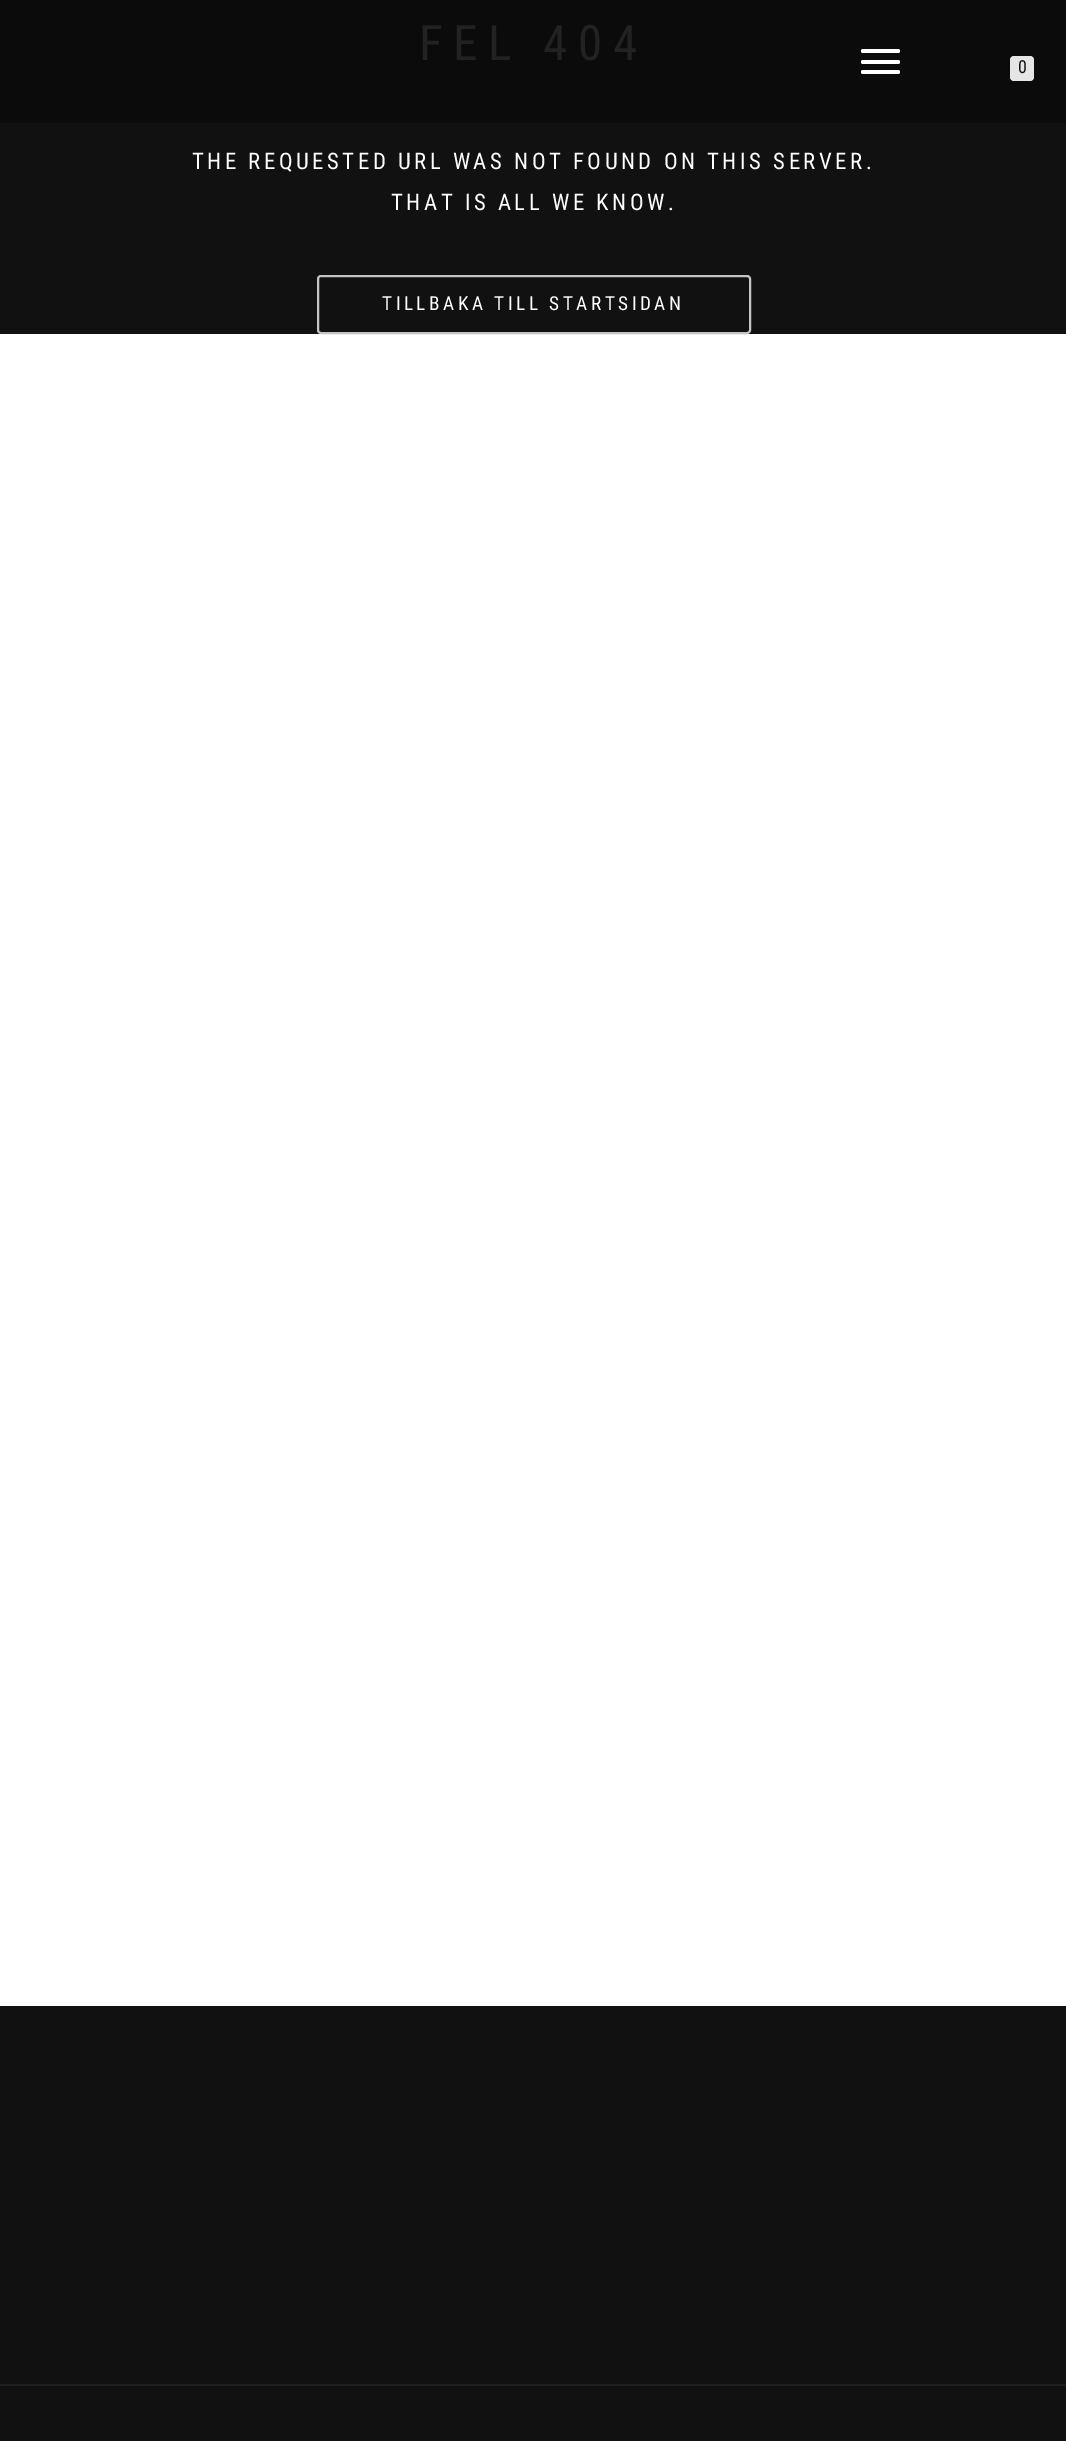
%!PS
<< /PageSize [1066 2441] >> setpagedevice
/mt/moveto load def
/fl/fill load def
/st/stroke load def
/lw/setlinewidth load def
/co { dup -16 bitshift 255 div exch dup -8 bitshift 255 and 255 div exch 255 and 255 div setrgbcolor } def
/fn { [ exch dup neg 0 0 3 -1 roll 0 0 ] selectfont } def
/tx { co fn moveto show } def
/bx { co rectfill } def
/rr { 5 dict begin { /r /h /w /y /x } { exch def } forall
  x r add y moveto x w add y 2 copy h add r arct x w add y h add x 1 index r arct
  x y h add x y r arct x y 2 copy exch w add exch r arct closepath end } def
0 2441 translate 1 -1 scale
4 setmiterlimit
0 0 1066 2441 16#FFFFFF bx
0 123 1066 211 16#111111 bx
0 0 1066 123 16#0B0B0B bx
16#C4C4C4 co
2 lw
318 276 432 57 3 rr st
16#FFFFFF co
861 49 39 4 2 rr fl
861 60 39 4 2 rr fl
861 70 39 4 2 rr fl
16#E5E5E5 co
1010 56 24 25 4 rr fl
0 2006 1066 378 16#111111 bx
0 2386 1066 55 16#111111 bx
0 2384 1066 2 16#202020 bx
/RobotoCondensed-Regular 49 fn
16#222222 co
419 60 mt 10.5 0 (FEL 404) ashow
/RobotoCondensed-Regular 22.75 fn
16#FFFFFF co
192 169 mt 3.5 0 (THE REQUESTED URL WAS NOT FOUND ON THIS SERVER.) ashow
391 210 mt 3.5 0 (THAT IS ALL WE KNOW.) ashow
/RobotoCondensed-Regular 19.25 fn
382 310 mt 3.5 0 (TILLBAKA TILL STARTSIDAN) ashow
(0) 1018 73 /RobotoCondensed-Regular 18 16#111111 tx
showpage
